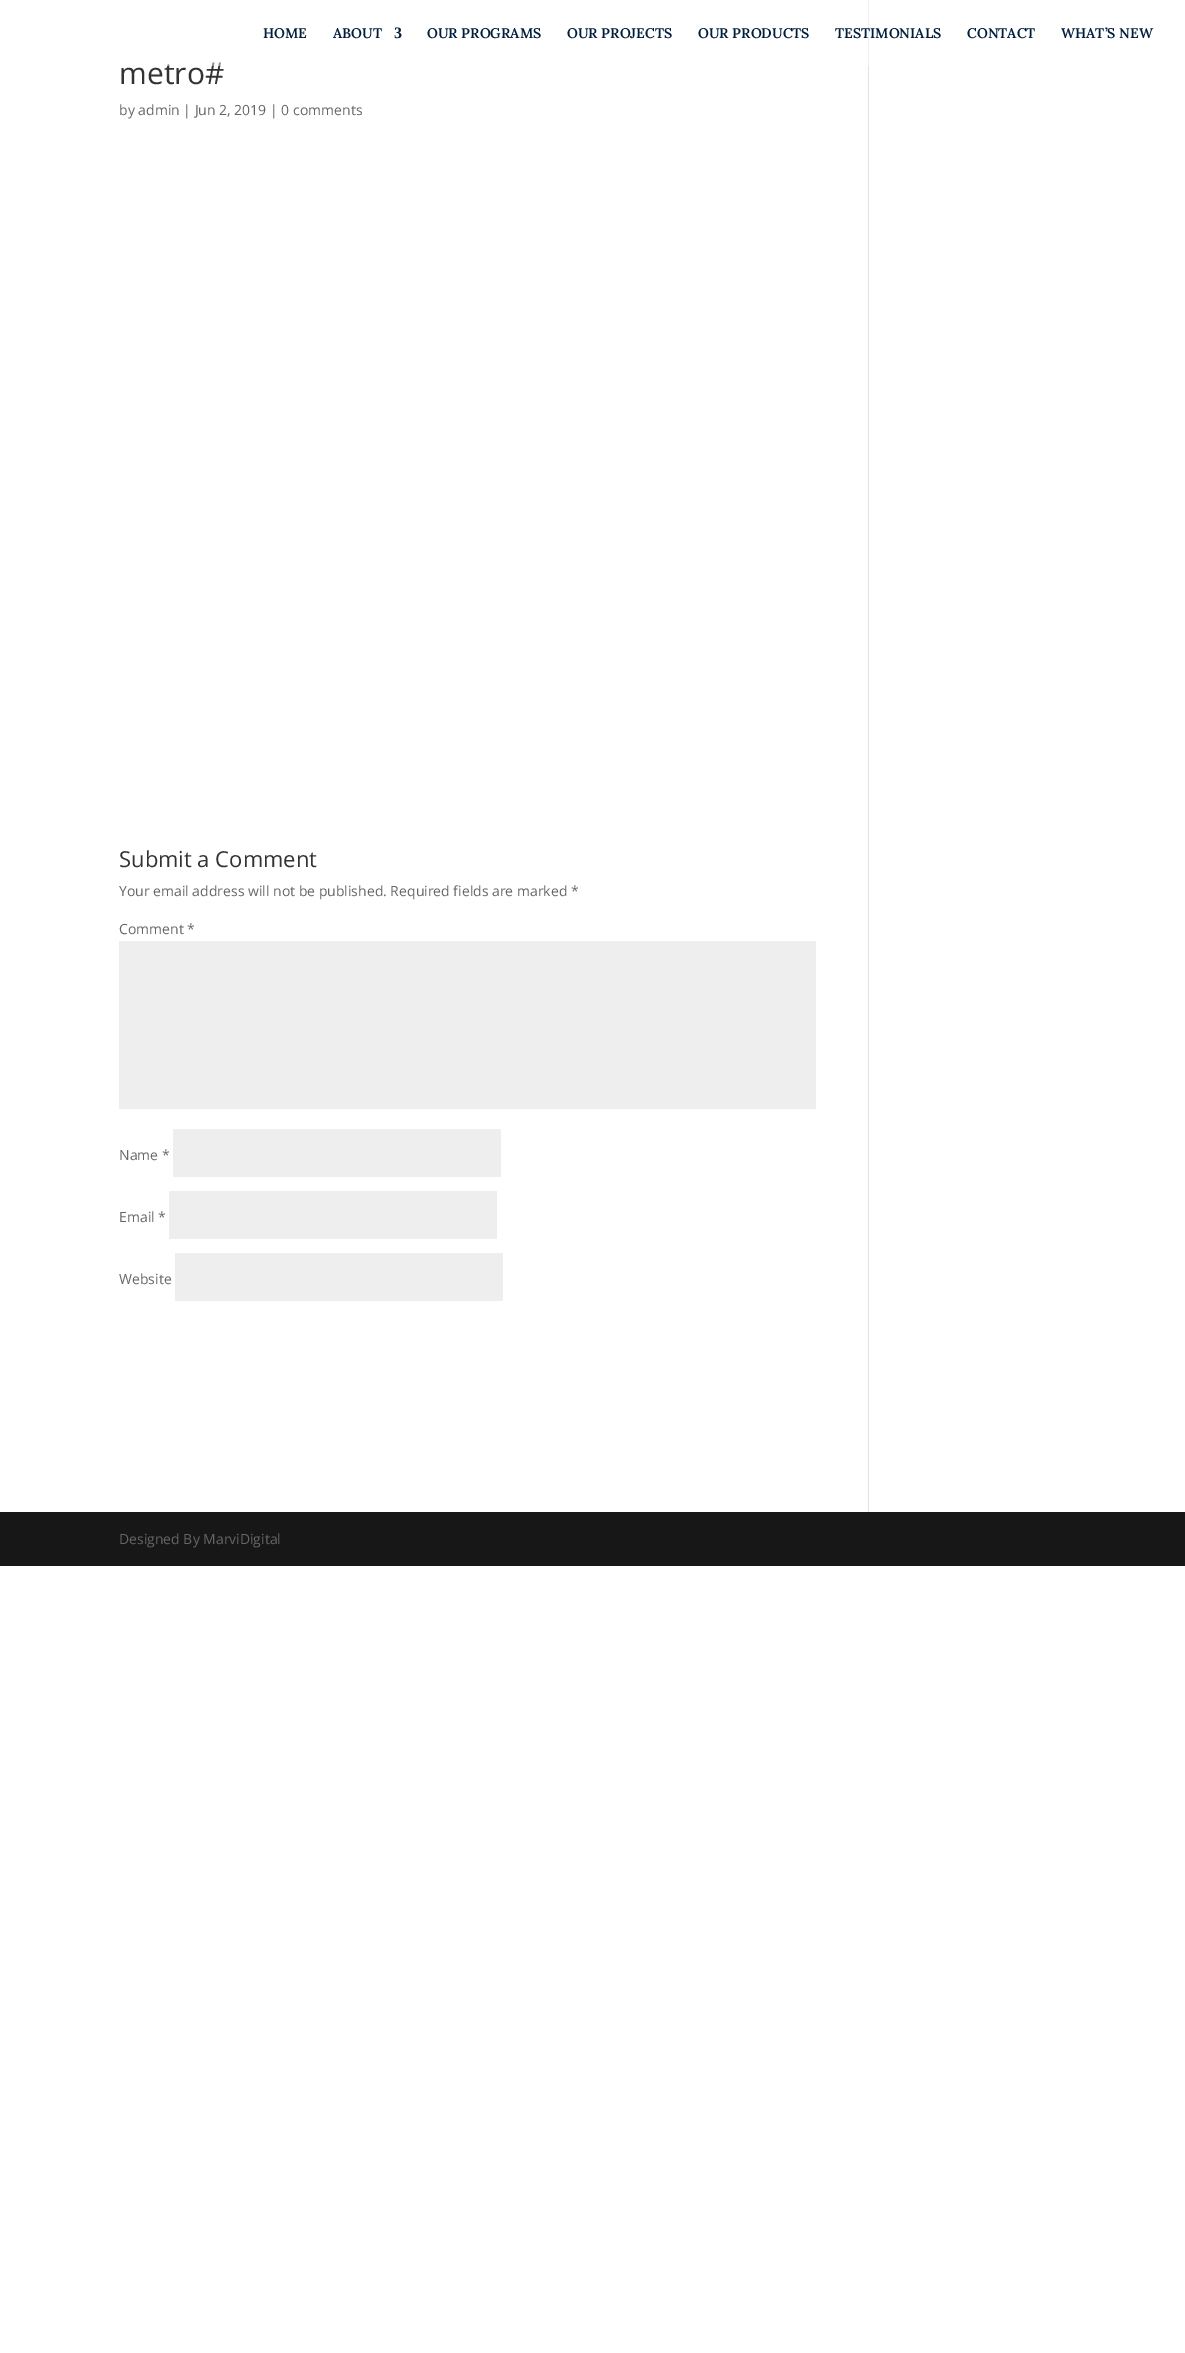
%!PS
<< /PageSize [1185 2353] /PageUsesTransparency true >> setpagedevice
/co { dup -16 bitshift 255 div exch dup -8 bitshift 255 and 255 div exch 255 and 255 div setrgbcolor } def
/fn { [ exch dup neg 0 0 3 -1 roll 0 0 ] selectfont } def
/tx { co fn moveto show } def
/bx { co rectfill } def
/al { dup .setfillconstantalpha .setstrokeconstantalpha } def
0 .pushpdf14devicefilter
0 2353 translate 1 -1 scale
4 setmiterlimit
0 0 1185 2353 16#FFFFFF bx
119 941 697 168 16#EEEEEE bx
173 1129 328 48 16#EEEEEE bx
169 1191 328 48 16#EEEEEE bx
175 1253 328 48 16#EEEEEE bx
868 0 1 1512 16#E2E2E2 bx
0 1512 1185 54 16#171717 bx
(CONTACT) 967 38 /Lora-SemiBold 14 16#001D3A tx
(WHAT’S NEW) 1061 38 /Lora-SemiBold 14 16#001D3A tx
(metro#) 119 84 /OpenSans-Regular 30 16#333333 tx
0.43 al
166 0 703 66 16#FFFFFF bx
1 al
(TESTIMONIALS) 835 38 /Lora-SemiBold 14 16#001D3A tx
(OUR PRODUCTS) 698 38 /Lora-SemiBold 14 16#001D3A tx
(OUR PROJECTS) 567 38 /Lora-SemiBold 14 16#001D3A tx
(OUR PROGRAMS) 427 38 /Lora-SemiBold 14 16#001D3A tx
(3) 394 38 /LiberationSerif-Bold 16 16#001D3A tx
(ABOUT) 333 38 /Lora-SemiBold 14 16#001D3A tx
(HOME) 263 38 /Lora-SemiBold 14 16#001D3A tx
(by admin | Jun 2, 2019 | 0 comments) 119 115 /OpenSans-Regular 14 16#666666 tx
(Submit a Comment) 119 867 /OpenSans-Regular 22 16#333333 tx
(Your email address will not be published. Required fields are marked *) 119 896 /OpenSans-Regular 14 16#666666 tx
(Comment *) 119 934 /OpenSans-Regular 14 16#666666 tx
(Name *) 119 1160 /OpenSans-Regular 14 16#666666 tx
(Email *) 119 1222 /OpenSans-Regular 14 16#666666 tx
(Website) 119 1284 /OpenSans-Regular 14 16#666666 tx
(Designed By MarviDigital) 119 1544 /OpenSans-Regular 14 16#666666 tx
.poppdf14devicefilter showpage
